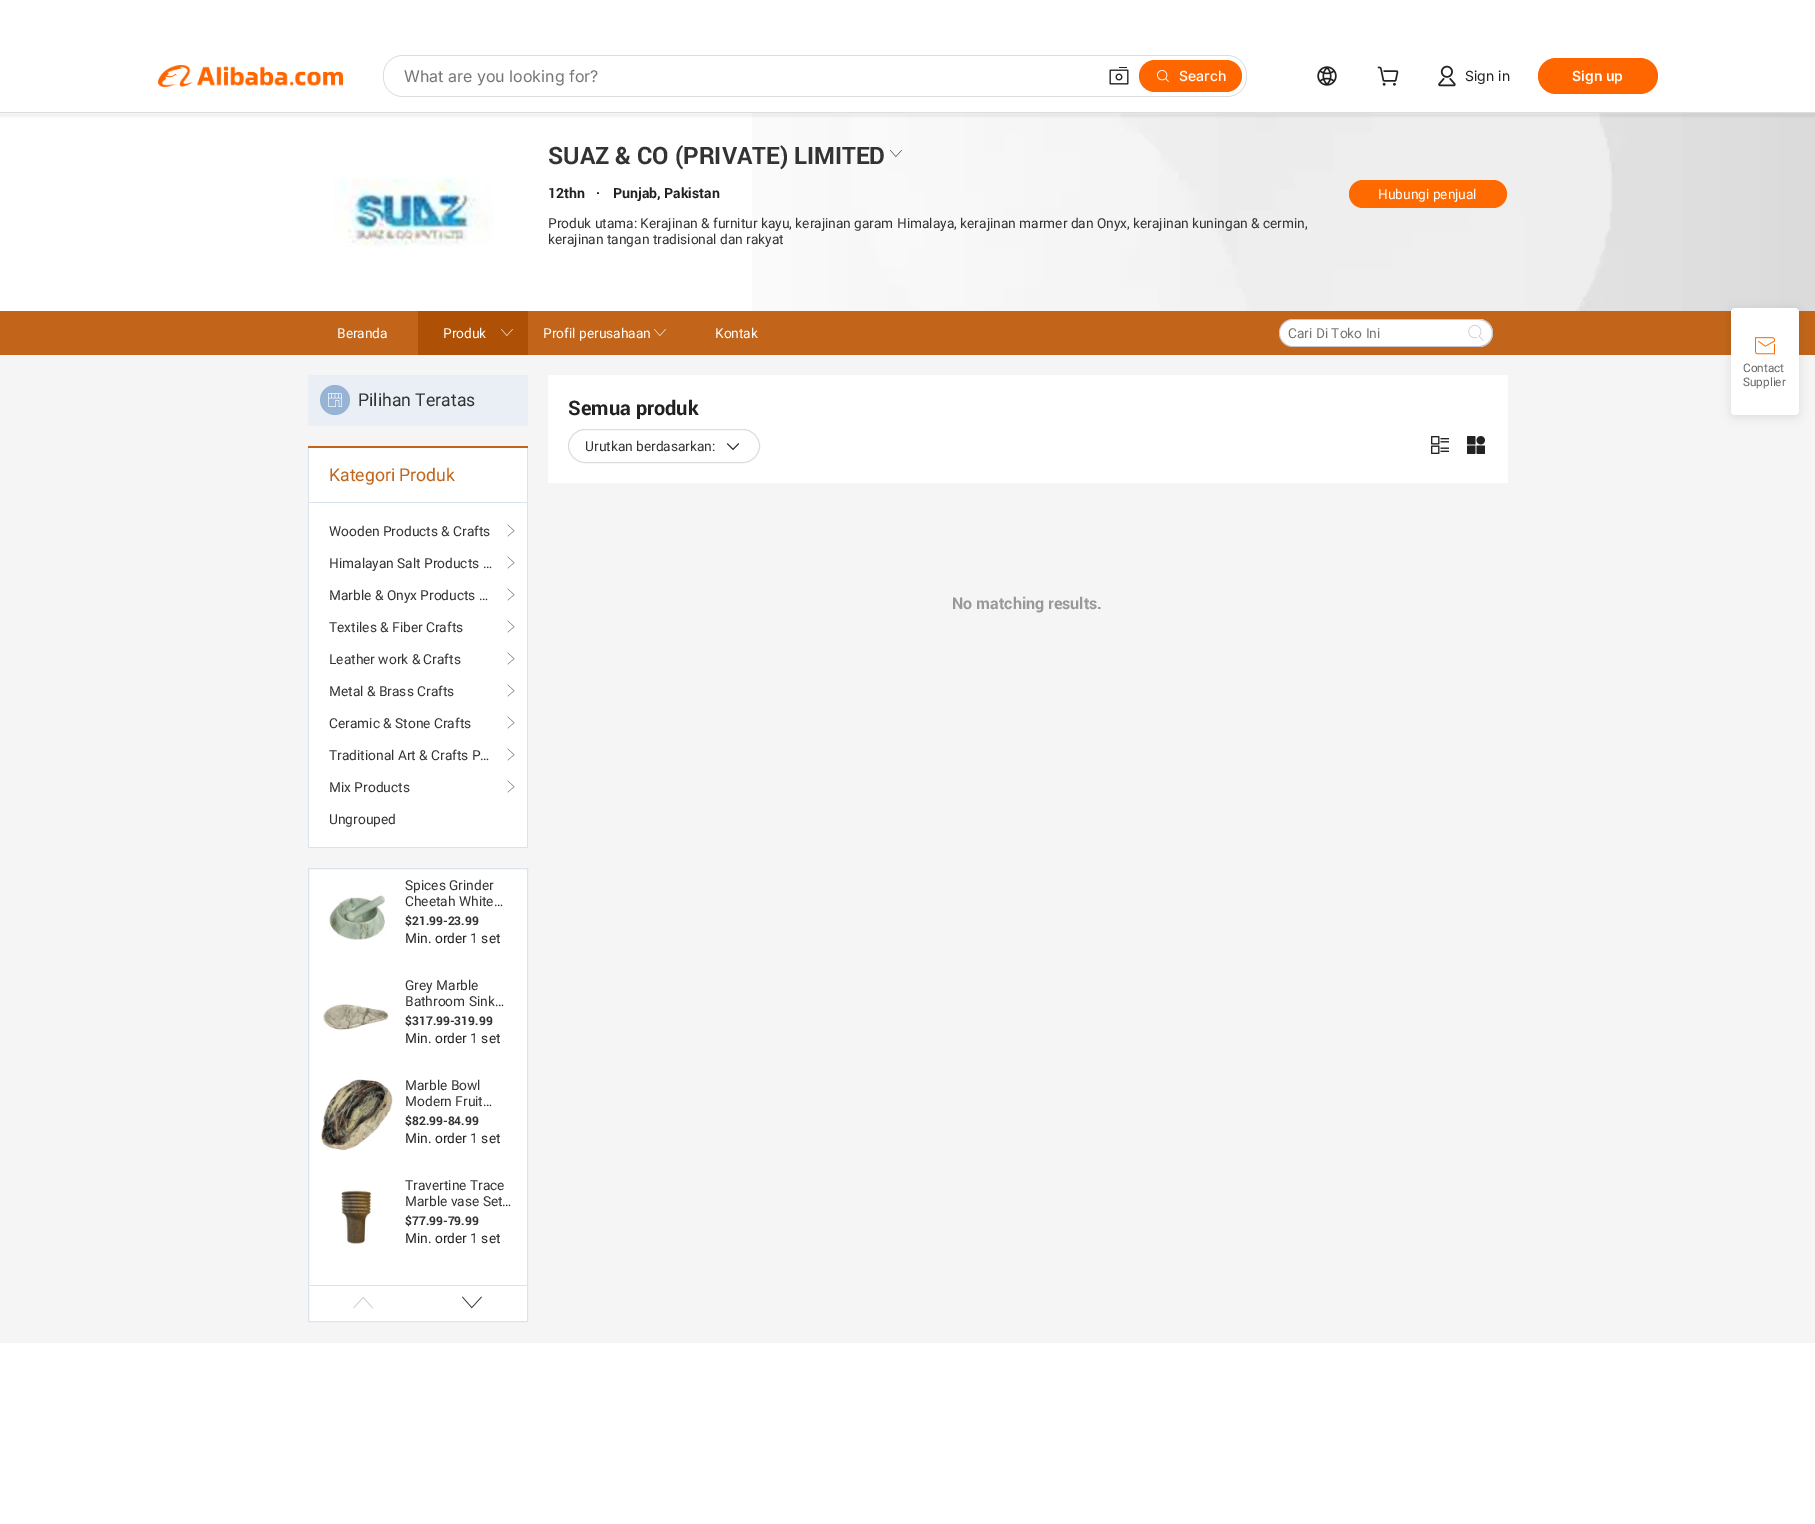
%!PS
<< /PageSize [1815 1524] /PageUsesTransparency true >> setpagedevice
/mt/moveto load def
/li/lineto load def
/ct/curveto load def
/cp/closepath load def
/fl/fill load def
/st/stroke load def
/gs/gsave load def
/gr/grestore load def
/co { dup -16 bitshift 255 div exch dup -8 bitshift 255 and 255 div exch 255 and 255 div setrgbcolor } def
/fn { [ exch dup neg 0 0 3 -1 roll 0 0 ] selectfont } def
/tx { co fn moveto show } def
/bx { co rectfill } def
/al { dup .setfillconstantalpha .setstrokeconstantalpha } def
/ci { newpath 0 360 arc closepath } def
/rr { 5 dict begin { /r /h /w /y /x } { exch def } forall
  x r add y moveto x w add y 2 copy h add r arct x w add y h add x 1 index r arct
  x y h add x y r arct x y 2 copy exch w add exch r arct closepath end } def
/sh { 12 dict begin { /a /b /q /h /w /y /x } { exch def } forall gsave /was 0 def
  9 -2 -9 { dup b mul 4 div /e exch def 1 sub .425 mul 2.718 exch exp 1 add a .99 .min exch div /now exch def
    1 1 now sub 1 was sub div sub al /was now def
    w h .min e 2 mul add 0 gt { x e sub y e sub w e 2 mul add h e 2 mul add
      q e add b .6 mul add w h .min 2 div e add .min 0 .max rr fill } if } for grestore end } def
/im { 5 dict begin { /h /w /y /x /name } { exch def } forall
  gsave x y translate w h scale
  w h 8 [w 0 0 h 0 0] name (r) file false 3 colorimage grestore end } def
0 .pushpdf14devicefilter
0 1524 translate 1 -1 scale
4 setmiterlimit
0 0 1815 1524 16#FFFFFF bx
(media/7.raw) 752 113 1063 198 im
16#000000 co
-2 113 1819 4 0 1 .05 sh
0 112 1815 1 16#DDDDDD bx
(media/1.raw) 158 65 185 22 im
383 55 864 42 20 rr fl
16#FFFFFF co
384 56 862 40 19 rr fl
(media/2.raw) 1109 67 20 18 im
16#FF6600 co
1139 60 103 32 16 rr fl
(media/3.raw) 1157 70 12 12 im
(media/4.raw) 1317 66 20 20 im
(media/5.raw) 1377 66 22 20 im
(media/6.raw) 1438 65 18 22 im
1538 58 120 36 18 rr fl
(media/8.raw) 334 177 160 70 im
(media/9.raw) 890 150 12 7 im
16#FF6A00 co
1349 180 158 28 14 rr fl
0 311 1815 44 16#C2651A bx
418 311 110 44 16#AE5106 bx
(media/10.raw) 501 329 12 7 im
(media/11.raw) 654 329 12 7 im
16#C4C6CF co
1293 319 mt 1460 319 li 1460 347 li 1293 347 li 1285 347 1279 341 1279 333 ct 1279 325 1285 319 1293 319 ct cp 1293 320 mt 1460 320 li 1460 346 li 1293 346 li 1286 346 1280 340 1280 333 ct 1280 326 1286 320 1293 320 ct cp eofill
16#FFFFFF co
1293 320 mt 1459.5 320 li 1460 320 1460 320 1460 320.5 ct 1460 345.5 li 1460 346 1460 346 1459.5 346 ct 1293 346 li 1286 346 1280 340 1280 333 ct 1280 326 1286 320 1293 320 ct cp fl
1460 319 mt 1479 319 li 1486.5 319 1493 325.5 1493 333 ct 1493 340.5 1486.5 347 1479 347 ct 1460 347 li cp fl
16#C4C6CF co
1460 319 mt 1479 319 li 1486.5 319 1493 325.5 1493 333 ct 1493 340.5 1486.5 347 1479 347 ct 1460 347 li cp 1460 320 mt 1479 320 li 1486 320 1492 326 1492 333 ct 1492 340 1486 346 1479 346 ct 1460 346 li cp eofill
(media/12.raw) 1468 325 16 16 im
0 355 1815 988 16#F5F5F5 bx
308 375 220 51 16#E9EFF5 bx
16#97B3D5 co
335 400 15 ci fl
(media/13.raw) 328 393 14 14 im
309 448 218 399 16#FFFFFF bx
308 446 220 2 16#C2651A bx
527 448 1 400 16#DBE3EF bx
308 847 220 1 16#DBE3EF bx
308 448 1 400 16#DBE3EF bx
309 502 218 1 16#DBE3EF bx
(media/14.raw) 507 524 8 13 im
(media/14.raw) 507 556 8 13 im
(media/14.raw) 507 588 8 13 im
(media/14.raw) 507 620 8 13 im
(media/14.raw) 507 652 8 13 im
(media/14.raw) 507 684 8 13 im
(media/14.raw) 507 716 8 13 im
(media/14.raw) 507 748 8 13 im
(media/14.raw) 507 780 8 13 im
16#FFFFFF co
308.5 868.5 mt 527.5 868.5 li 527.5 1321.5 li 308.5 1321.5 li cp gs fl gr
16#DBE3EF co
st
(media/15.raw) 329 895 57 45 im
(media/16.raw) 323 1004 66 26 im
(media/17.raw) 320 1079 73 72 im
(media/18.raw) 341 1190 31 54 im
309 1285 218 1 16#DBE3EF bx
(media/19.raw) 353 1296 20 13 im
(media/20.raw) 462 1296 20 13 im
548 375 960 108 16#FFFFFF bx
16#DDDDDD co
568.5 429.5 191 33 16.5 rr st
(media/21.raw) 726 443 14 7 im
(media/22.raw) 1431 436 18 18 im
(media/23.raw) 1467 436 18 18 im
16#000000 co
1731 310 68 107 4 5 .1 sh
16#FFFFFF co
1731 308 68 107 4 rr fl
(media/24.raw) 1755 337 20 18 im
(What are you looking for?) 404 82 /Inter-Regular 16 16#757575 tx
(Search) 1179 81 /Inter-Medium 14 16#FFFFFF tx
(Sign in) 1465 81 /Inter-Regular 14 16#222222 tx
(Sign up) 1572 81 /Inter-SemiBold 14 16#FFFFFF tx
(SUAZ & CO \(PRIVATE\) LIMITED) 548 164 /Roboto-Bold 24 16#333333 tx
(12thn) 548 198 /Roboto-Bold 14 16#222222 tx
(·) 596 198 /Roboto-Bold 14 16#222222 tx
(Punjab, Pakistan) 613 198 /Roboto-Bold 14 16#222222 tx
(Produk utama: Kerajinan & furnitur kayu, kerajinan garam Himalaya, kerajinan marmer dan Onyx, kerajinan kuningan & cermin,) 548 228 /Roboto-Regular 14 16#333333 tx
(kerajinan tangan tradisional dan rakyat) 548 244 /Roboto-Regular 14 16#333333 tx
(Hubungi penjual) 1378 199 /Roboto-Regular 14 16#FFFFFF tx
(Beranda) 337 338 /Roboto-Regular 14 16#FFFFFF tx
(Produk) 443 338 /Roboto-Regular 14 16#FFFFFF tx
(Profil perusahaan) 543 338 /Roboto-Regular 14 16#FFFFFF tx
(Kontak) 715 338 /Roboto-Regular 14 16#FFFFFF tx
(Cari Di Toko Ini) 1288 338 /Roboto-Regular 14 16#757575 tx
(Pilihan Teratas) 358 406 /Roboto-Regular 18 16#333333 tx
(Kategori Produk) 329 481 /Roboto-Regular 18 16#C2651A tx
(Wooden Products & Crafts) 329 536 /Roboto-Regular 14 16#333333 tx
(Himalayan Salt Products …) 329 568 /Roboto-Regular 14 16#333333 tx
(Marble & Onyx Products …) 329 600 /Roboto-Regular 14 16#333333 tx
(Textiles & Fiber Crafts) 329 632 /Roboto-Regular 14 16#333333 tx
(Leather work & Crafts) 329 664 /Roboto-Regular 14 16#333333 tx
(Metal & Brass Crafts) 329 696 /Roboto-Regular 14 16#333333 tx
(Ceramic & Stone Crafts) 329 728 /Roboto-Regular 14 16#333333 tx
(Traditional Art & Crafts P…) 329 760 /Roboto-Regular 14 16#333333 tx
(Mix Products) 329 792 /Roboto-Regular 14 16#333333 tx
(Ungrouped) 329 824 /Roboto-Regular 14 16#333333 tx
(Spices Grinder) 405 890 /Roboto-Regular 14 16#333333 tx
(Cheetah White…) 405 906 /Roboto-Regular 14 16#333333 tx
($21.99-23.99) 405 925 /Roboto-Bold 12 16#333333 tx
(Min. order 1 set) 405 943 /Roboto-Regular 14 16#222222 tx
(Grey Marble) 405 990 /Roboto-Regular 14 16#333333 tx
(Bathroom Sink…) 405 1006 /Roboto-Regular 14 16#333333 tx
($317.99-319.99) 405 1025 /Roboto-Bold 12 16#333333 tx
(Min. order 1 set) 405 1043 /Roboto-Regular 14 16#222222 tx
(Marble Bowl) 405 1090 /Roboto-Regular 14 16#333333 tx
(Modern Fruit…) 405 1106 /Roboto-Regular 14 16#333333 tx
($82.99-84.99) 405 1125 /Roboto-Bold 12 16#333333 tx
(Min. order 1 set) 405 1143 /Roboto-Regular 14 16#222222 tx
(Travertine Trace) 405 1190 /Roboto-Regular 14 16#333333 tx
(Marble vase Set…) 405 1206 /Roboto-Regular 14 16#333333 tx
($77.99-79.99) 405 1225 /Roboto-Bold 12 16#333333 tx
(Min. order 1 set) 405 1243 /Roboto-Regular 14 16#222222 tx
(Semua produk) 568 415 /Roboto-Bold 20 16#222222 tx
(Urutkan berdasarkan:) 585 451 /Roboto-Regular 14 16#333333 tx
(No matching results.) 952 609 /Roboto-Bold 16 16#999999 tx
(Contact) 1743 372 /Roboto-Regular 12 16#666666 tx
(Supplier) 1743 386 /Roboto-Regular 12 16#666666 tx
.poppdf14devicefilter showpage
